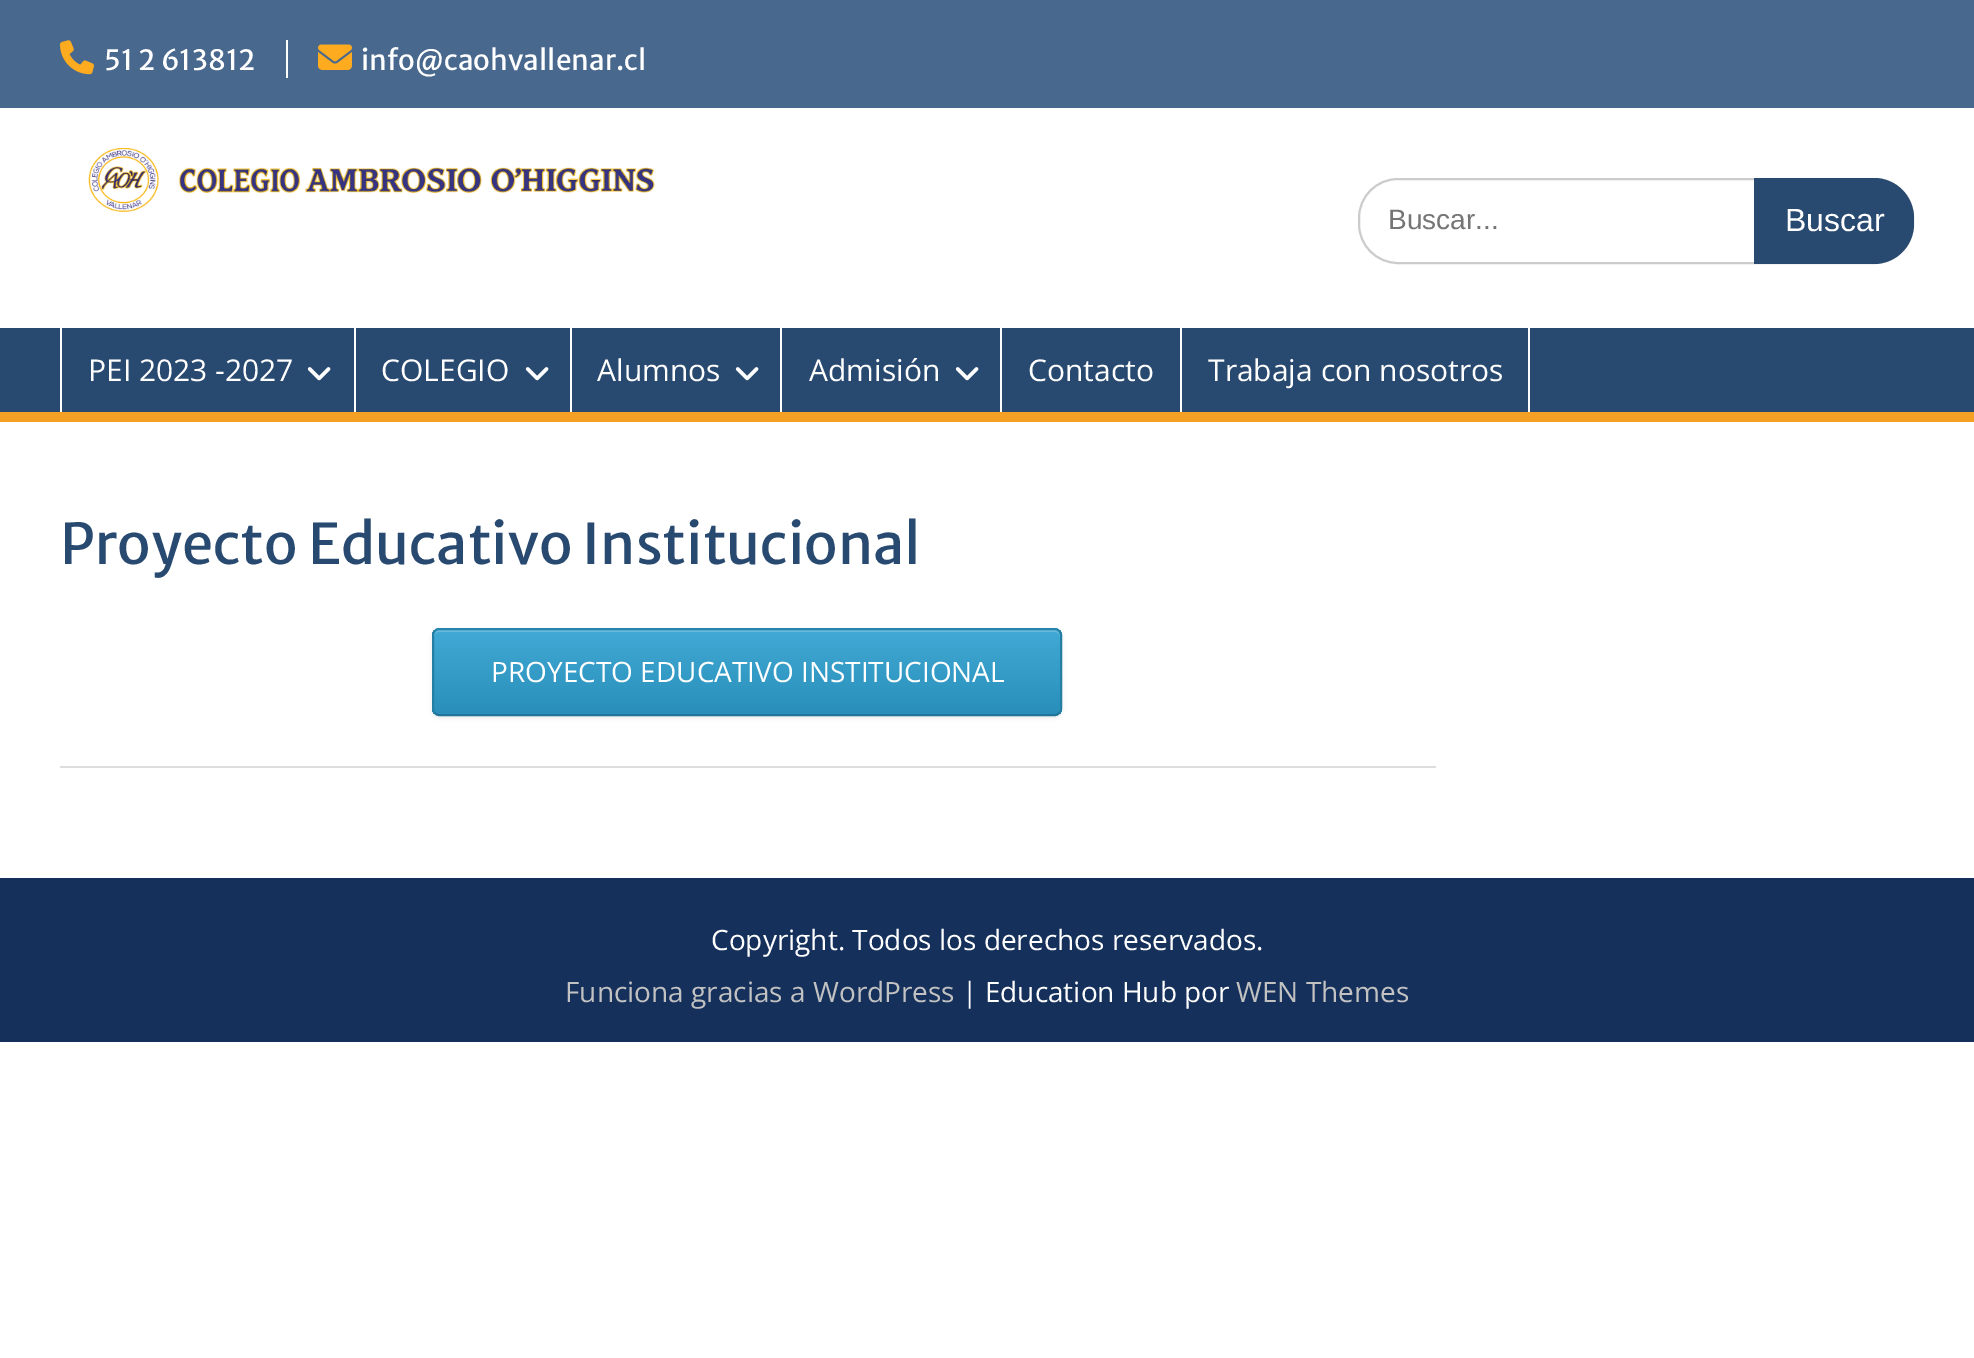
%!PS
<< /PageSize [1974 1358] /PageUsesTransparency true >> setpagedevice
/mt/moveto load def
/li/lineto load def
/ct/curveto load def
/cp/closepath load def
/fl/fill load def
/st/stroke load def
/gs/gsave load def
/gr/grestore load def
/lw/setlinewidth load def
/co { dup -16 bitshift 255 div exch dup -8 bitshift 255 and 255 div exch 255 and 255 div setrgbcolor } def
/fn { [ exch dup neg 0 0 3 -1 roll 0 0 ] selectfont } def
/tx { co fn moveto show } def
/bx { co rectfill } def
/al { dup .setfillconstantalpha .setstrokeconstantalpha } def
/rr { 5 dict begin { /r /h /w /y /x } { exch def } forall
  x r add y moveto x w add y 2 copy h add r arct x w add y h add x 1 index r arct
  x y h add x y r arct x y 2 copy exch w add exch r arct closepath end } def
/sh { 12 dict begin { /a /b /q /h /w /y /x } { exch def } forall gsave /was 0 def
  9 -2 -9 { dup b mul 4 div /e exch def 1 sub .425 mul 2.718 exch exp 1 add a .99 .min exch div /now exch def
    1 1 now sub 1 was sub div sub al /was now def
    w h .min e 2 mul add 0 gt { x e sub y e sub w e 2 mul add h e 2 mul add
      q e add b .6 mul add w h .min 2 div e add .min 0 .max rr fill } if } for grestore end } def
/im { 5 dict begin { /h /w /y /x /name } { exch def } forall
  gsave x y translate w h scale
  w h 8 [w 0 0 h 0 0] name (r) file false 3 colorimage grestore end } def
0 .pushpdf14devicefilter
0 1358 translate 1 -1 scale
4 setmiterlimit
0 0 1974 1358 16#FFFFFF bx
0 0 1974 108 16#49688E bx
(media/1.raw) 60 40 34 35 im
286 40 2 38 16#FFFFFF bx
(media/2.raw) 318 44 34 26 im
(media/3.raw) 88 148 567 64 im
16#CCCCCC co
2 lw
1359 179 554 84 39 rr st
16#294A70 co
1754 178 mt 1874 178 li 1896 178 1914 196 1914 218 ct 1914 224 li 1914 246 1896 264 1874 264 ct 1754 264 li cp fl
0 328 1974 84 16#294A70 bx
0 412 1974 10 16#F4A024 bx
354 328 2 84 16#FFFFFF bx
60 328 2 84 16#FFFFFF bx
(media/4.raw) 307 367 24 14 im
570 328 2 84 16#FFFFFF bx
(media/4.raw) 525 367 24 14 im
780 328 2 84 16#FFFFFF bx
(media/4.raw) 735 367 24 14 im
1000 328 2 84 16#FFFFFF bx
(media/4.raw) 955 367 24 14 im
1180 328 2 84 16#FFFFFF bx
1528 328 2 84 16#FFFFFF bx
60 766 1376 2 16#DDDDDD bx
16#000000 co
432 630 630 88 8 2 .07 sh
gs
432 628 630 88 8 rr clip newpath
gs 432 630 mt 1062 630 li 1062 714 li 432 714 li cp clip newpath
<< /ShadingType 2 /ColorSpace /DeviceRGB /Coords [434 714 434 630] /Extend [true true] /Function << /FunctionType 2 /Domain [0 1] /C0 [.161 .561 .729] /C1 [.255 .663 .835] /N 1 >> >> shfill gr
gr
16#67BADD co
439 632 mt 1055 632 li 1058 632 1060 634 1060 637 ct 1060 634 1059 630 1055 630 ct 439 630 li 435 630 434 634 434 637 ct 434 634 436 632 439 632 ct cp fl
16#2685AD co
435 631 mt 436 629.5 437.5 629 439 629 ct 1055 629 li 1056.5 629 1058 629.5 1059 631 ct st
16#247FA5 co
1059 631 mt 1060.5 632 1061 633.5 1061 635 ct 1061 709 li 1061 710.5 1060.5 712 1059 713 ct st
16#227598 co
1059 713 mt 1058 714.5 1056.5 715 1055 715 ct 439 715 li 437.5 715 436 714.5 435 713 ct st
16#247FA5 co
435 713 mt 433.5 712 433 710.5 433 709 ct 433 635 li 433 633.5 433.5 632 435 631 ct st
0 878 1974 164 16#15305B bx
(51 2 613812) 104 70 /MerriweatherSans-Regular 28 16#FFFFFF tx
(info@caohvallenar.cl) 361 70 /MerriweatherSans-Regular 28 16#FFFFFF tx
(Buscar...) 1388 229 /LiberationSans-Regular 28 16#757575 tx
(Buscar) 1785 231 /LiberationSans-Regular 32 16#FFFFFF tx
(PEI 2023 -2027) 88 381 /OpenSans-Regular 30 16#FFFFFF tx
(COLEGIO) 381 381 /OpenSans-Regular 30 16#FFFFFF tx
(Alumnos) 597 381 /OpenSans-Regular 30 16#FFFFFF tx
(Admisión) 809 381 /OpenSans-Regular 30 16#FFFFFF tx
(Contacto) 1028 381 /OpenSans-Regular 30 16#FFFFFF tx
(Trabaja con nosotros) 1208 381 /OpenSans-Regular 30 16#FFFFFF tx
(Proyecto Educativo Institucional) 60 564 /MerriweatherSans-Regular 56 16#294A70 tx
(PROYECTO EDUCATIVO INSTITUCIONAL) 491 682 /OpenSans-Regular 28 16#FFFFFF tx
(Copyright. Todos los derechos reservados.) 711 950 /OpenSans-Regular 28 16#FFFFFF tx
(Funciona gracias a WordPress) 565 1002 /OpenSans-Regular 28 16#C2C2C2 tx
(| Education Hub por) 962 1002 /OpenSans-Regular 28 16#FFFFFF tx
(WEN Themes) 1236 1002 /OpenSans-Regular 28 16#C2C2C2 tx
.poppdf14devicefilter showpage
